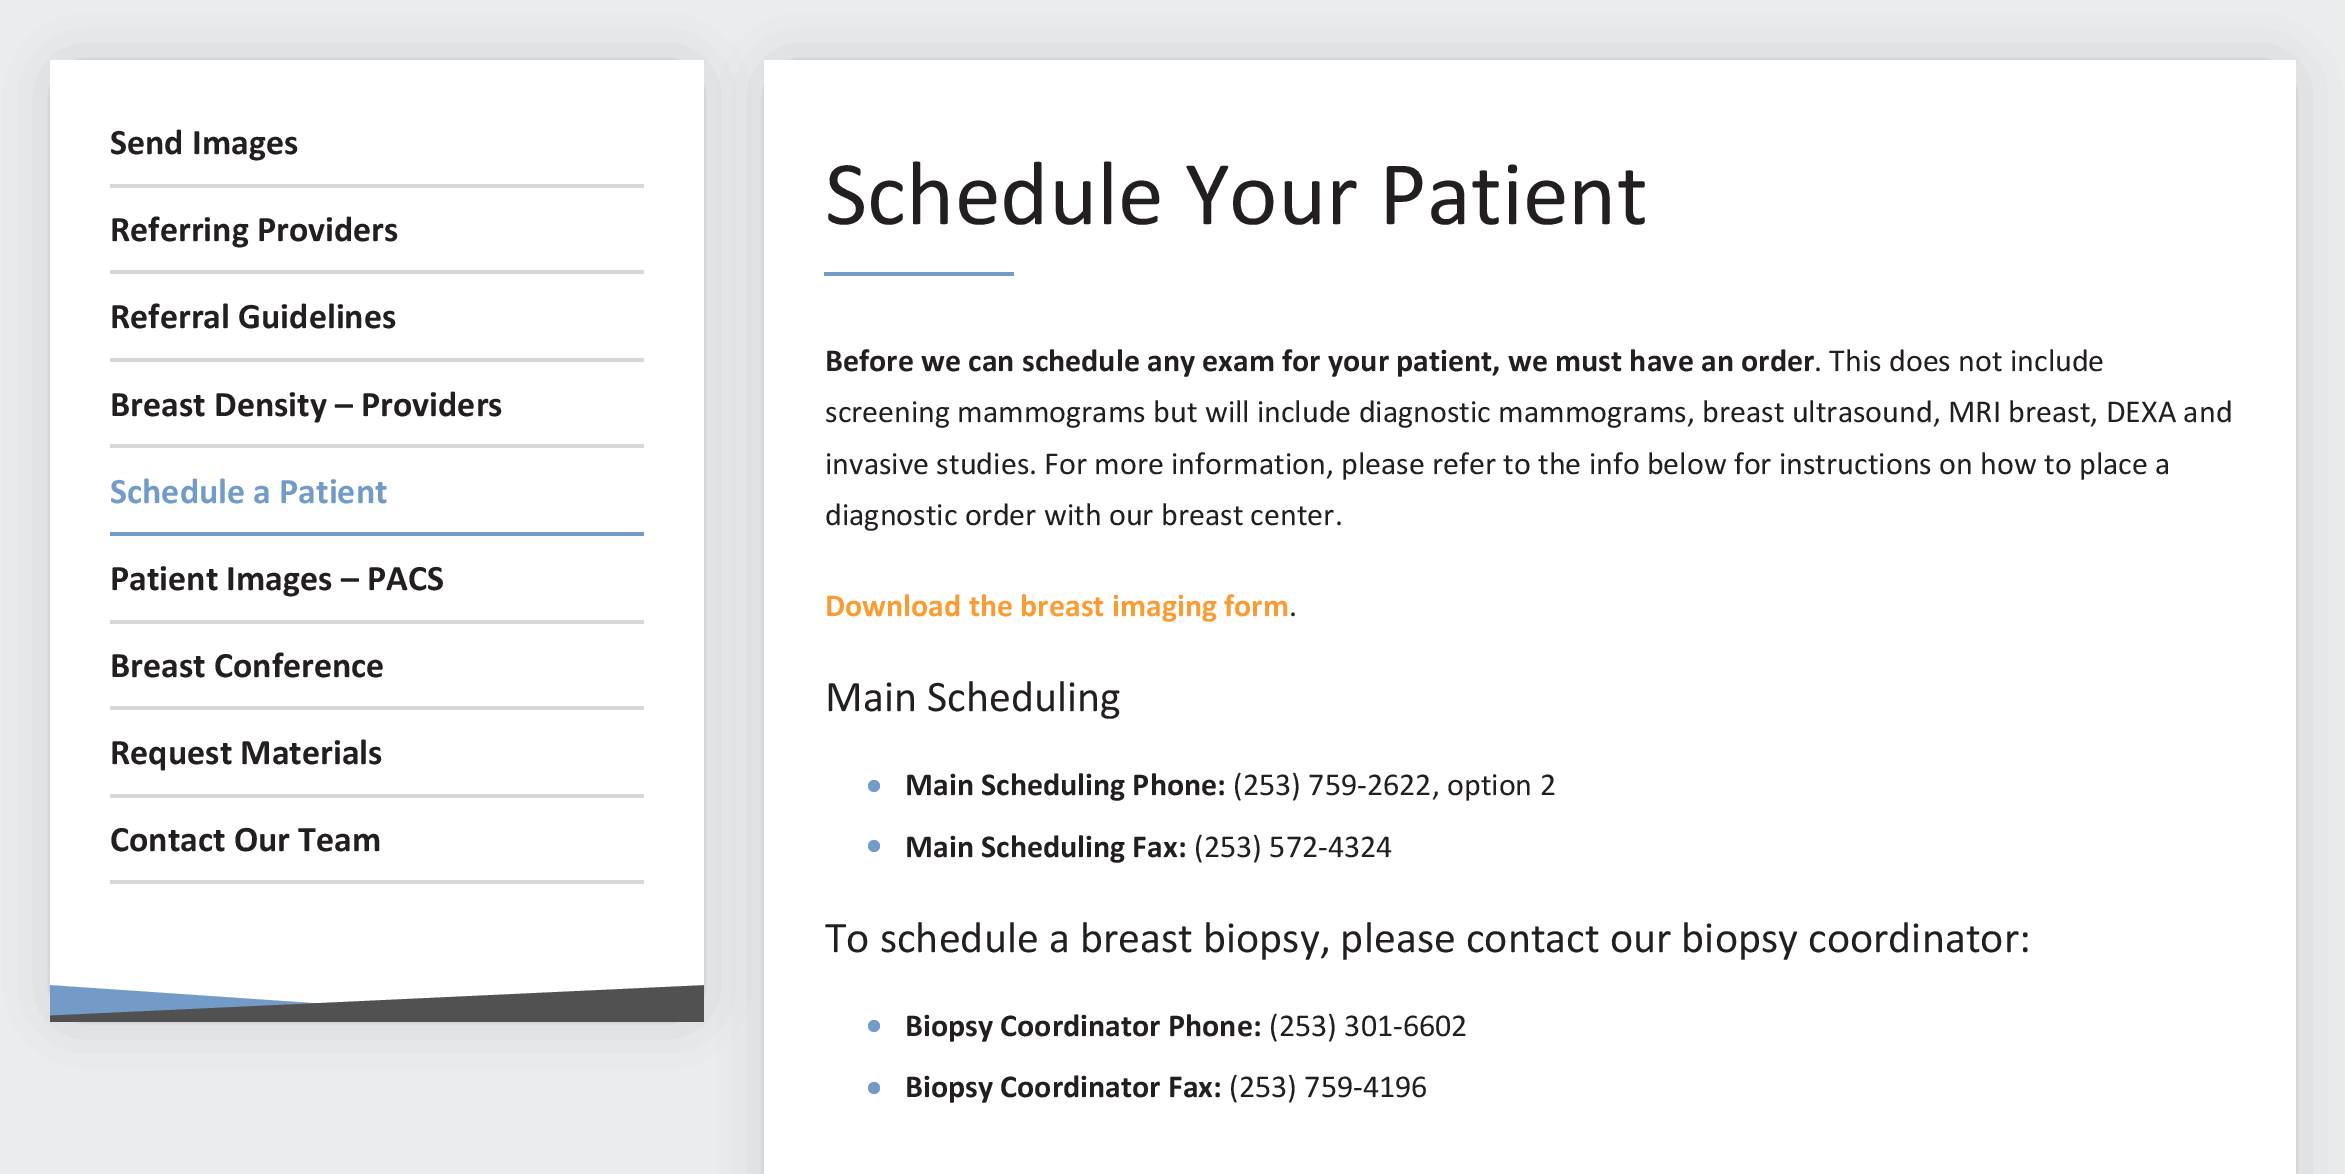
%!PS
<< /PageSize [2345 1174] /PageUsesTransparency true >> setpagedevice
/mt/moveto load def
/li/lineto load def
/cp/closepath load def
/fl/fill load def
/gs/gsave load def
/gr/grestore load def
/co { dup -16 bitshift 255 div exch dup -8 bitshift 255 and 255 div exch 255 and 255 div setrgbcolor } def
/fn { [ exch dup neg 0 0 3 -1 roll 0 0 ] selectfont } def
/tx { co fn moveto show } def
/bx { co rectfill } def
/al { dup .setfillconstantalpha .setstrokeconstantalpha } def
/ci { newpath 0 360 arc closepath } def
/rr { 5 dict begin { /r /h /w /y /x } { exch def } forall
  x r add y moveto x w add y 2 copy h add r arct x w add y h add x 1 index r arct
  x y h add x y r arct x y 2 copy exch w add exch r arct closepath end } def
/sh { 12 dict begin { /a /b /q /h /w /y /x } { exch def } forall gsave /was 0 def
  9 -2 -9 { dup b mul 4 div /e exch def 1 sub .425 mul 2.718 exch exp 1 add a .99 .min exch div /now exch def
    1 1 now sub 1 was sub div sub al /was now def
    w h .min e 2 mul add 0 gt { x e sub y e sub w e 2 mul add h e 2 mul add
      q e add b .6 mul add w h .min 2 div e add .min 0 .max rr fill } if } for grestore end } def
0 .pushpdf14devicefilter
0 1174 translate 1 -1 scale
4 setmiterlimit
0 0 2345 1174 16#EBECEF bx
16#000000 co
70 80 614 922 0 30 .3 sh
50 60 654 944 16#FFFFFF bx
110 184 534 4 16#D8D8D8 bx
110 270 534 4 16#D8D8D8 bx
110 358 534 4 16#D8D8D8 bx
110 444 534 4 16#D8D8D8 bx
110 532 534 4 16#729BC7 bx
110 620 534 4 16#D8D8D8 bx
110 706 534 4 16#D8D8D8 bx
110 794 534 4 16#D8D8D8 bx
110 880 534 4 16#D8D8D8 bx
gs
50 984 654 38 rectclip
16#729BC7 co
33 984 mt 341 1005 li 42 1027 li cp eofill
16#515151 co
42 1016 mt 730 984 li 730 1027 li 42 1027 li cp eofill
gr
16#000000 co
784 80 1492 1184 0 30 .3 sh
764 60 1532 1114 16#FFFFFF bx
824 272 190 4 16#729BC7 bx
874 786 6 ci fl
874 846 6 ci fl
874 1026 6 ci fl
874 1088 6 ci fl
(Send Images) 110 154 /Calibri-Bold 36 16#231F20 tx
(Referring Providers) 110 241 /Calibri-Bold 36 16#231F20 tx
(Referral Guidelines) 110 328 /Calibri-Bold 36 16#231F20 tx
(Breast Density – Providers) 110 416 /Calibri-Bold 36 16#231F20 tx
(Schedule a Patient) 110 503 /Calibri-Bold 36 16#729BC7 tx
(Patient Images – PACS) 110 590 /Calibri-Bold 36 16#231F20 tx
(Breast Conference) 110 677 /Calibri-Bold 36 16#231F20 tx
(Request Materials) 110 764 /Calibri-Bold 36 16#231F20 tx
(Contact Our Team) 110 851 /Calibri-Bold 36 16#231F20 tx
(Schedule Your Patient) 825 224 /Calibri-Regular 92 16#231F20 tx
(Before we can schedule any exam for your patient, we must have an order) 825 371 /Calibri-Bold 32 16#231F20 tx
(. This does not include) 1814 371 /Calibri-Regular 32 16#231F20 tx
(screening mammograms but will include diagnostic mammograms, breast ultrasound, MRI breast, DEXA and) 825 422 /Calibri-Regular 32 16#231F20 tx
(invasive studies. For more information, please refer to the info below for instructions on how to place a) 825 474 /Calibri-Regular 32 16#231F20 tx
(diagnostic order with our breast center.) 825 525 /Calibri-Regular 32 16#231F20 tx
(Download the breast imaging form) 825 616 /Calibri-Bold 32 16#FB9C32 tx
(.) 1289 616 /Calibri-Regular 32 16#231F20 tx
(Main Scheduling) 825 711 /Calibri-Regular 44 16#231F20 tx
(Main Scheduling Phone:) 905 795 /Calibri-Bold 32 16#231F20 tx
(\(253\) 759-2622, option 2) 1233 795 /Calibri-Regular 32 16#231F20 tx
(Main Scheduling Fax:) 905 857 /Calibri-Bold 32 16#231F20 tx
(\(253\) 572-4324) 1194 857 /Calibri-Regular 32 16#231F20 tx
(To schedule a breast biopsy, please contact our biopsy coordinator:) 825 952 /Calibri-Regular 44 16#231F20 tx
(Biopsy Coordinator Phone:) 905 1036 /Calibri-Bold 32 16#231F20 tx
(\(253\) 301-6602) 1269 1036 /Calibri-Regular 32 16#231F20 tx
(Biopsy Coordinator Fax:) 905 1097 /Calibri-Bold 32 16#231F20 tx
(\(253\) 759-4196) 1229 1097 /Calibri-Regular 32 16#231F20 tx
.poppdf14devicefilter showpage
